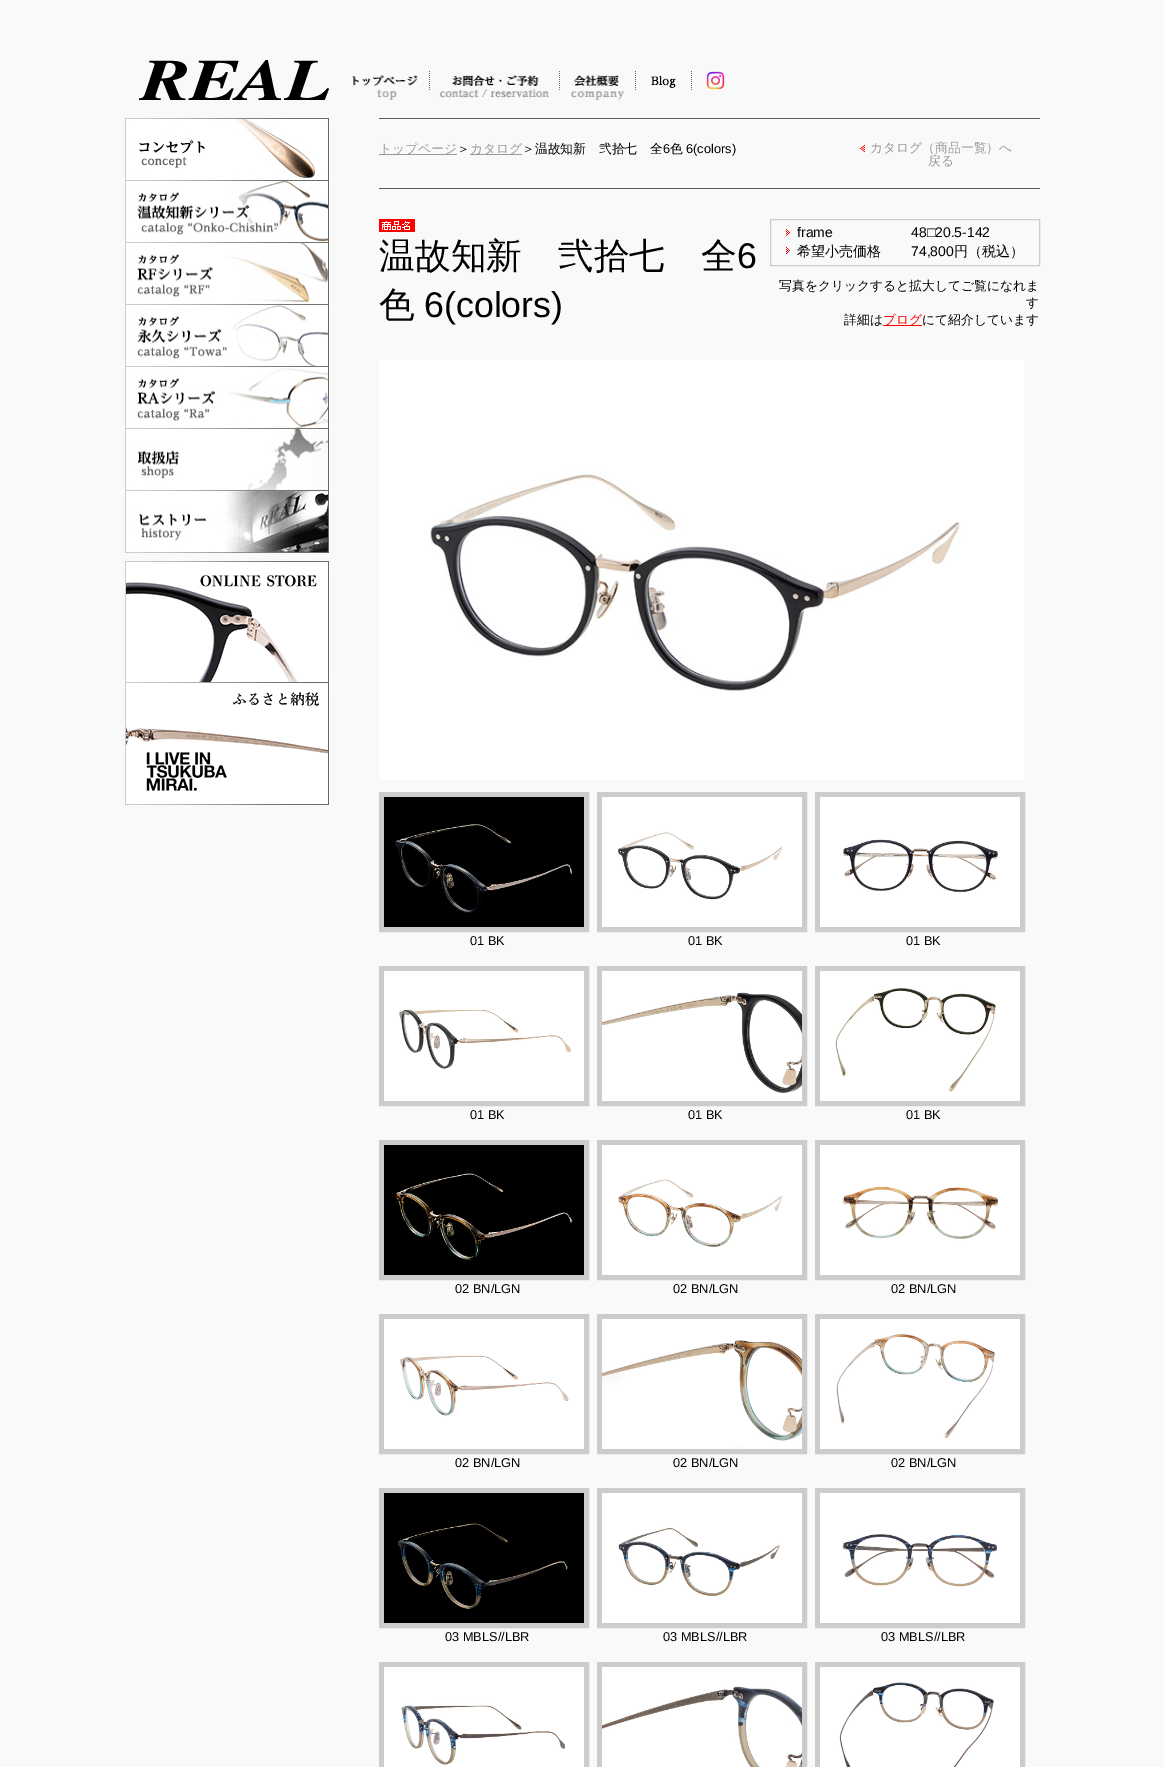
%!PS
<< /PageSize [1164 1767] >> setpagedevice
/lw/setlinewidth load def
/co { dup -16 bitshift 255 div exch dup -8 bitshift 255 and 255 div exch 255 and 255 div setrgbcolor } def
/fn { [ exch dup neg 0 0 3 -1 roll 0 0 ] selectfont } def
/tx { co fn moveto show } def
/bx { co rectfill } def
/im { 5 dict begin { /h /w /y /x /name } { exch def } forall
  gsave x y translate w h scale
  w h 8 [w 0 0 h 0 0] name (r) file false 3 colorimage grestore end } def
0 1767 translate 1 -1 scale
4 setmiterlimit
0 0 1164 1767 16#F9F9F9 bx
(media/1.raw) 139 60 190 40 im
(media/2.raw) 352 71 78 29 im
(media/3.raw) 439 71 121 27 im
(media/4.raw) 571 71 65 29 im
(media/5.raw) 651 71 41 19 im
(media/6.raw) 706 71 19 19 im
(media/7.raw) 125 118 204 63 im
(media/8.raw) 125 181 204 62 im
(media/9.raw) 125 243 204 62 im
(media/10.raw) 125 305 204 62 im
(media/11.raw) 125 367 204 62 im
(media/12.raw) 125 429 204 62 im
(media/13.raw) 125 491 204 62 im
(media/14.raw) 125 561 204 122 im
(media/15.raw) 125 683 204 122 im
379 118 661 1 16#5B5B5B bx
379 188 661 1 16#5B5B5B bx
379 154 78 1 16#999999 bx
470 154 52 1 16#999999 bx
(media/16.raw) 860 145 5 7 im
(media/17.raw) 379 219 36 13 im
16#CCCCCC co
770.5 219.5 269 46 rectstroke
(media/18.raw) 786 229 4 7 im
(media/18.raw) 786 247 4 7 im
883 325 39 1 16#FF0000 bx
(media/19.raw) 379 360 645 420 im
16#CCCCCC co
5 lw
381.5 794.5 205 135 rectstroke
(media/20.raw) 384 797 200 130 im
599.5 794.5 205 135 rectstroke
(media/21.raw) 602 797 200 130 im
817.5 794.5 205 135 rectstroke
(media/22.raw) 820 797 200 130 im
381.5 968.5 205 135 rectstroke
(media/23.raw) 384 971 200 130 im
599.5 968.5 205 135 rectstroke
(media/24.raw) 602 971 200 130 im
817.5 968.5 205 135 rectstroke
(media/25.raw) 820 971 200 130 im
381.5 1142.5 205 135 rectstroke
(media/26.raw) 384 1145 200 130 im
599.5 1142.5 205 135 rectstroke
(media/27.raw) 602 1145 200 130 im
817.5 1142.5 205 135 rectstroke
(media/28.raw) 820 1145 200 130 im
381.5 1316.5 205 135 rectstroke
(media/29.raw) 384 1319 200 130 im
599.5 1316.5 205 135 rectstroke
(media/30.raw) 602 1319 200 130 im
817.5 1316.5 205 135 rectstroke
(media/31.raw) 820 1319 200 130 im
381.5 1490.5 205 135 rectstroke
(media/32.raw) 384 1493 200 130 im
599.5 1490.5 205 135 rectstroke
(media/33.raw) 602 1493 200 130 im
817.5 1490.5 205 135 rectstroke
(media/34.raw) 820 1493 200 130 im
381.5 1664.5 205 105 rectstroke
(media/35.raw) 384 1667 200 100 im
599.5 1664.5 205 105 rectstroke
(media/36.raw) 602 1667 200 100 im
817.5 1664.5 205 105 rectstroke
(media/37.raw) 820 1667 200 100 im
(トップページ) 379 153 /WenQuanYiZenHei-Medium 12.8 16#999999 tx
(＞) 457 153 /WenQuanYiZenHei-Medium 12.8 16#000000 tx
(カタログ) 470 153 /WenQuanYiZenHei-Medium 12.8 16#999999 tx
(＞温故知新　弐拾七　全) 522 153 /WenQuanYiZenHei-Medium 12.8 16#000000 tx
(6) 663 153 /LiberationSans-Regular 12.8 16#000000 tx
(色) 670 153 /WenQuanYiZenHei-Medium 12.8 16#000000 tx
(6\(colors\)) 686 153 /LiberationSans-Regular 12.8 16#000000 tx
(カタログ（商品一覧）へ) 870 152 /WenQuanYiZenHei-Medium 12.8 16#999999 tx
(戻る) 928 165 /WenQuanYiZenHei-Medium 12.8 16#999999 tx
(温故知新　弐拾七　全) 379 268 /WenQuanYiZenHei-Medium 35.75 16#000000 tx
(6) 737 268 /LiberationSans-Regular 35.75 16#000000 tx
(色) 379 317 /WenQuanYiZenHei-Medium 35.75 16#000000 tx
(6\(colors\)) 424 317 /LiberationSans-Regular 35.75 16#000000 tx
(frame) 797 237 /LiberationSans-Regular 14 16#000000 tx
(48□20.5-142) 911 237 /LiberationSans-Regular 14 16#000000 tx
(希望小売価格) 797 256 /WenQuanYiZenHei-Medium 14 16#000000 tx
(74,800) 911 256 /LiberationSans-Regular 14 16#000000 tx
(円（税込）) 954 256 /WenQuanYiZenHei-Medium 14 16#000000 tx
(写真をクリックすると拡大してご覧になれま) 779 290 /WenQuanYiZenHei-Medium 12.8 16#000000 tx
(す) 1026 307 /WenQuanYiZenHei-Medium 12.8 16#000000 tx
(詳細は) 844 324 /WenQuanYiZenHei-Medium 12.8 16#000000 tx
(ブログ) 883 324 /WenQuanYiZenHei-Medium 12.8 16#FF0000 tx
(にて紹介しています) 922 324 /WenQuanYiZenHei-Medium 12.8 16#000000 tx
(01 BK) 470 945 /LiberationSans-Regular 12.8 16#000000 tx
(01 BK) 688 945 /LiberationSans-Regular 12.8 16#000000 tx
(01 BK) 906 945 /LiberationSans-Regular 12.8 16#000000 tx
(01 BK) 470 1119 /LiberationSans-Regular 12.8 16#000000 tx
(01 BK) 688 1119 /LiberationSans-Regular 12.8 16#000000 tx
(01 BK) 906 1119 /LiberationSans-Regular 12.8 16#000000 tx
(02 BN/LGN) 455 1293 /LiberationSans-Regular 12.8 16#000000 tx
(02 BN/LGN) 673 1293 /LiberationSans-Regular 12.8 16#000000 tx
(02 BN/LGN) 891 1293 /LiberationSans-Regular 12.8 16#000000 tx
(02 BN/LGN) 455 1467 /LiberationSans-Regular 12.8 16#000000 tx
(02 BN/LGN) 673 1467 /LiberationSans-Regular 12.8 16#000000 tx
(02 BN/LGN) 891 1467 /LiberationSans-Regular 12.8 16#000000 tx
(03 MBLS//LBR) 445 1641 /LiberationSans-Regular 12.8 16#000000 tx
(03 MBLS//LBR) 663 1641 /LiberationSans-Regular 12.8 16#000000 tx
(03 MBLS//LBR) 881 1641 /LiberationSans-Regular 12.8 16#000000 tx
showpage
